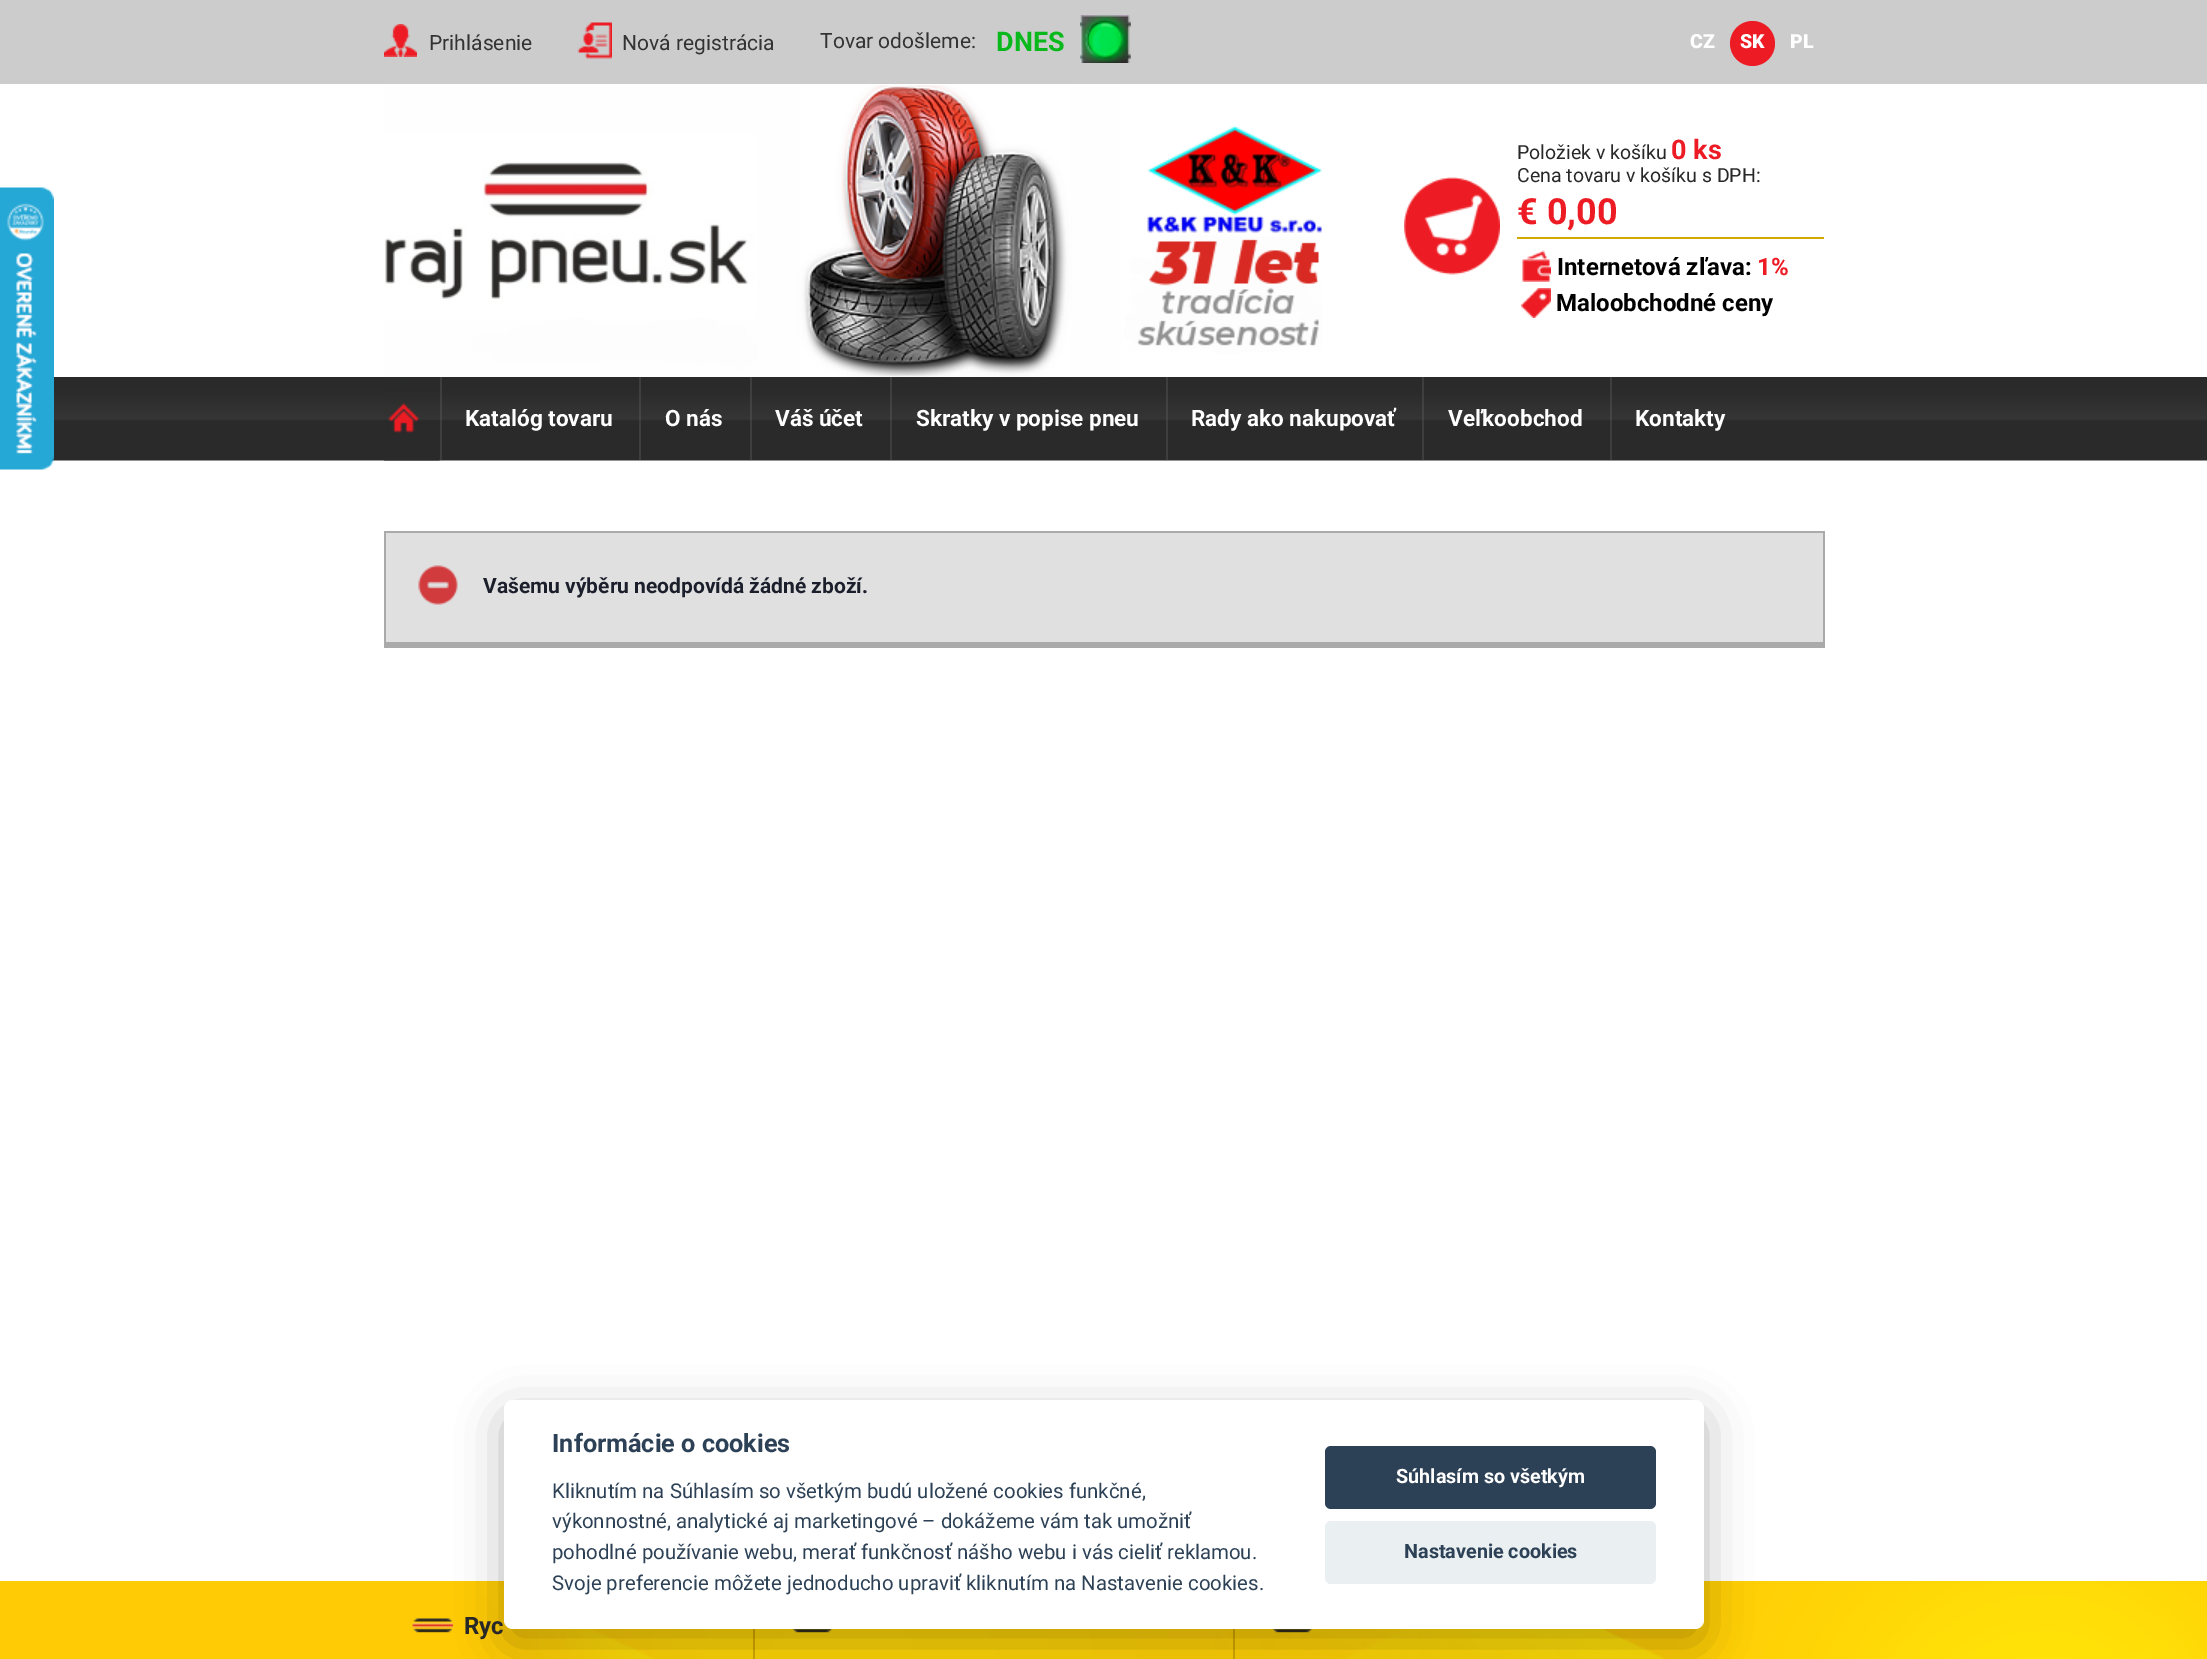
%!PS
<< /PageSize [2207 1659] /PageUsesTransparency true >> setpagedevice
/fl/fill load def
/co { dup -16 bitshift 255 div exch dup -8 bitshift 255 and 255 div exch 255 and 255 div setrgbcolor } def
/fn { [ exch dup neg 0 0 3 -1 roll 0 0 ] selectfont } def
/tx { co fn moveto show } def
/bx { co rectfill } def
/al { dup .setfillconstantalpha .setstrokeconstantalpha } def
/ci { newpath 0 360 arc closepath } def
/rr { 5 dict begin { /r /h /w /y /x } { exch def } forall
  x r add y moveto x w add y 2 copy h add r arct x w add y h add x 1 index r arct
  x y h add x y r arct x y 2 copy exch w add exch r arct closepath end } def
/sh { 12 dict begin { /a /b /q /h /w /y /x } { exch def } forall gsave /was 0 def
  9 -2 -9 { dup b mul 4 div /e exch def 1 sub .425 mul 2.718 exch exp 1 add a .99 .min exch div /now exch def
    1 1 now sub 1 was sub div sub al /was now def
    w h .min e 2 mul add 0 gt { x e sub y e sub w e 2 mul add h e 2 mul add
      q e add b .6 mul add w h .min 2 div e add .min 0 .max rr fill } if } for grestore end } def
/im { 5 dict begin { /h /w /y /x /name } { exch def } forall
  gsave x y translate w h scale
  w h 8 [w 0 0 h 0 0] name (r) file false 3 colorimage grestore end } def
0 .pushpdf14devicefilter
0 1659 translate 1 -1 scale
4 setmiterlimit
0 0 2207 1659 16#FFFFFF bx
(media/9.raw) 52 377 2155 84 im
(media/1.raw) 0 187 54 283 im
0 0 2207 84 16#CCCCCC bx
(media/2.raw) 384 24 33 33 im
(media/3.raw) 577 22 35 37 im
(media/4.raw) 1080 15 51 48 im
16#ED1C24 co
1752.5 43.5 22.5 ci fl
(media/5.raw) 385 85 937 292 im
(media/6.raw) 1404 177 96 98 im
1517 237 307 2 16#D5A902 bx
(media/7.raw) 1522 250 29 32 im
(media/8.raw) 1521 288 30 30 im
(media/10.raw) 384 377 56 84 im
0.25 al
440 377 2 84 16#787878 bx
639 377 2 84 16#787878 bx
750 377 2 84 16#787878 bx
890 377 2 84 16#787878 bx
1166 377 2 84 16#787878 bx
1422 377 2 84 16#787878 bx
1610 377 2 84 16#787878 bx
1 al
386 533 1437 109 16#E0E0E0 bx
(media/11.raw) 418 565 40 40 im
384 531 1440 2 16#AAAAAA bx
1823 531 2 117 16#AAAAAA bx
384 642 1440 6 16#AAAAAA bx
384 531 2 117 16#AAAAAA bx
(media/12.raw) 0 1581 2207 78 im
753 1629 2 30 16#D5A902 bx
(media/13.raw) 412 1618 41 15 im
1233 1629 2 30 16#D5A902 bx
(media/14.raw) 793 1629 39 4 im
(media/15.raw) 1273 1629 39 4 im
16#020203 co
504 1415 1200 229 9 22.5 .28 sh
16#FFFFFF co
504 1400 1200 229 9 rr fl
16#2D4156 co
1325 1446 331 63 6 rr fl
16#EAEFF2 co
1325 1521 331 63 6 rr fl
(Prihlásenie) 429 50 /Roboto-Regular 21 16#333333 tx
(Nová registrácia) 622 50 /Roboto-Regular 21 16#333333 tx
(Tovar odošleme:) 820 48 /Roboto-Regular 21 16#333333 tx
(DNES) 996 51 /Roboto-Bold 27 16#09B81A tx
(CZ) 1690 48 /Roboto-Black 19.5 16#FFFFFF tx
(SK) 1740 48 /Roboto-Black 19.5 16#FFFFFF tx
(PL) 1790 48 /Roboto-Black 19.5 16#FFFFFF tx
(Položiek v košíku) 1517 159 /Roboto-Regular 19.5 16#282828 tx
(0 ks) 1671 159 /Roboto-Bold 27 16#ED1C24 tx
(Cena tovaru v košíku s DPH:) 1517 182 /Roboto-Regular 19.5 16#282828 tx
(€ 0,00) 1517 224 /Roboto-Bold 36 16#ED1C24 tx
(Internetová zľava:) 1557 275 /Roboto-Bold 24 16#000000 tx
(1%) 1757 275 /Roboto-Bold 24 16#ED1C24 tx
(Maloobchodné ceny) 1556 311 /Roboto-Bold 24 16#000000 tx
(Katalóg tovaru) 465 426 /Roboto-Bold 22.5 16#FFFFFF tx
(O nás) 665 426 /Roboto-Bold 22.5 16#FFFFFF tx
(Váš účet) 775 426 /Roboto-Bold 22.5 16#FFFFFF tx
(Skratky v popise pneu) 916 426 /Roboto-Bold 22.5 16#FFFFFF tx
(Rady ako nakupovať) 1191 426 /Roboto-Bold 22.5 16#FFFFFF tx
(Veľkoobchod) 1448 426 /Roboto-Bold 22.5 16#FFFFFF tx
(Kontakty) 1635 426 /Roboto-Bold 22.5 16#FFFFFF tx
(Vašemu výběru neodpovídá žádné zboží.) 483 593 /Roboto-Bold 21 16#1A1F2B tx
(Informácie o cookies) 552 1452 /Roboto-Bold 25.25 16#2D4156 tx
(Kliknutím na Súhlasím so všetkým budú uložené cookies funkčné,) 552 1498 /Roboto-Regular 20.4 16#2D4156 tx
(výkonnostné, analytické aj marketingové – dokážeme vám tak umožniť) 552 1528 /Roboto-Regular 20.4 16#2D4156 tx
(pohodlné používanie webu, merať funkčnosť nášho webu i vás cieliť reklamou.) 552 1559 /Roboto-Regular 20.4 16#2D4156 tx
(Svoje preferencie môžete jednoducho upraviť kliknutím na Nastavenie cookies.) 552 1590 /Roboto-Regular 20.4 16#2D4156 tx
(Súhlasím so všetkým) 1396 1483 /Roboto-Bold 19.75 16#FFFFFF tx
(Nastavenie cookies) 1404 1558 /Roboto-Bold 19.75 16#2D4156 tx
(Ryc) 464 1634 /Roboto-Bold 24 16#282828 tx
.poppdf14devicefilter showpage
